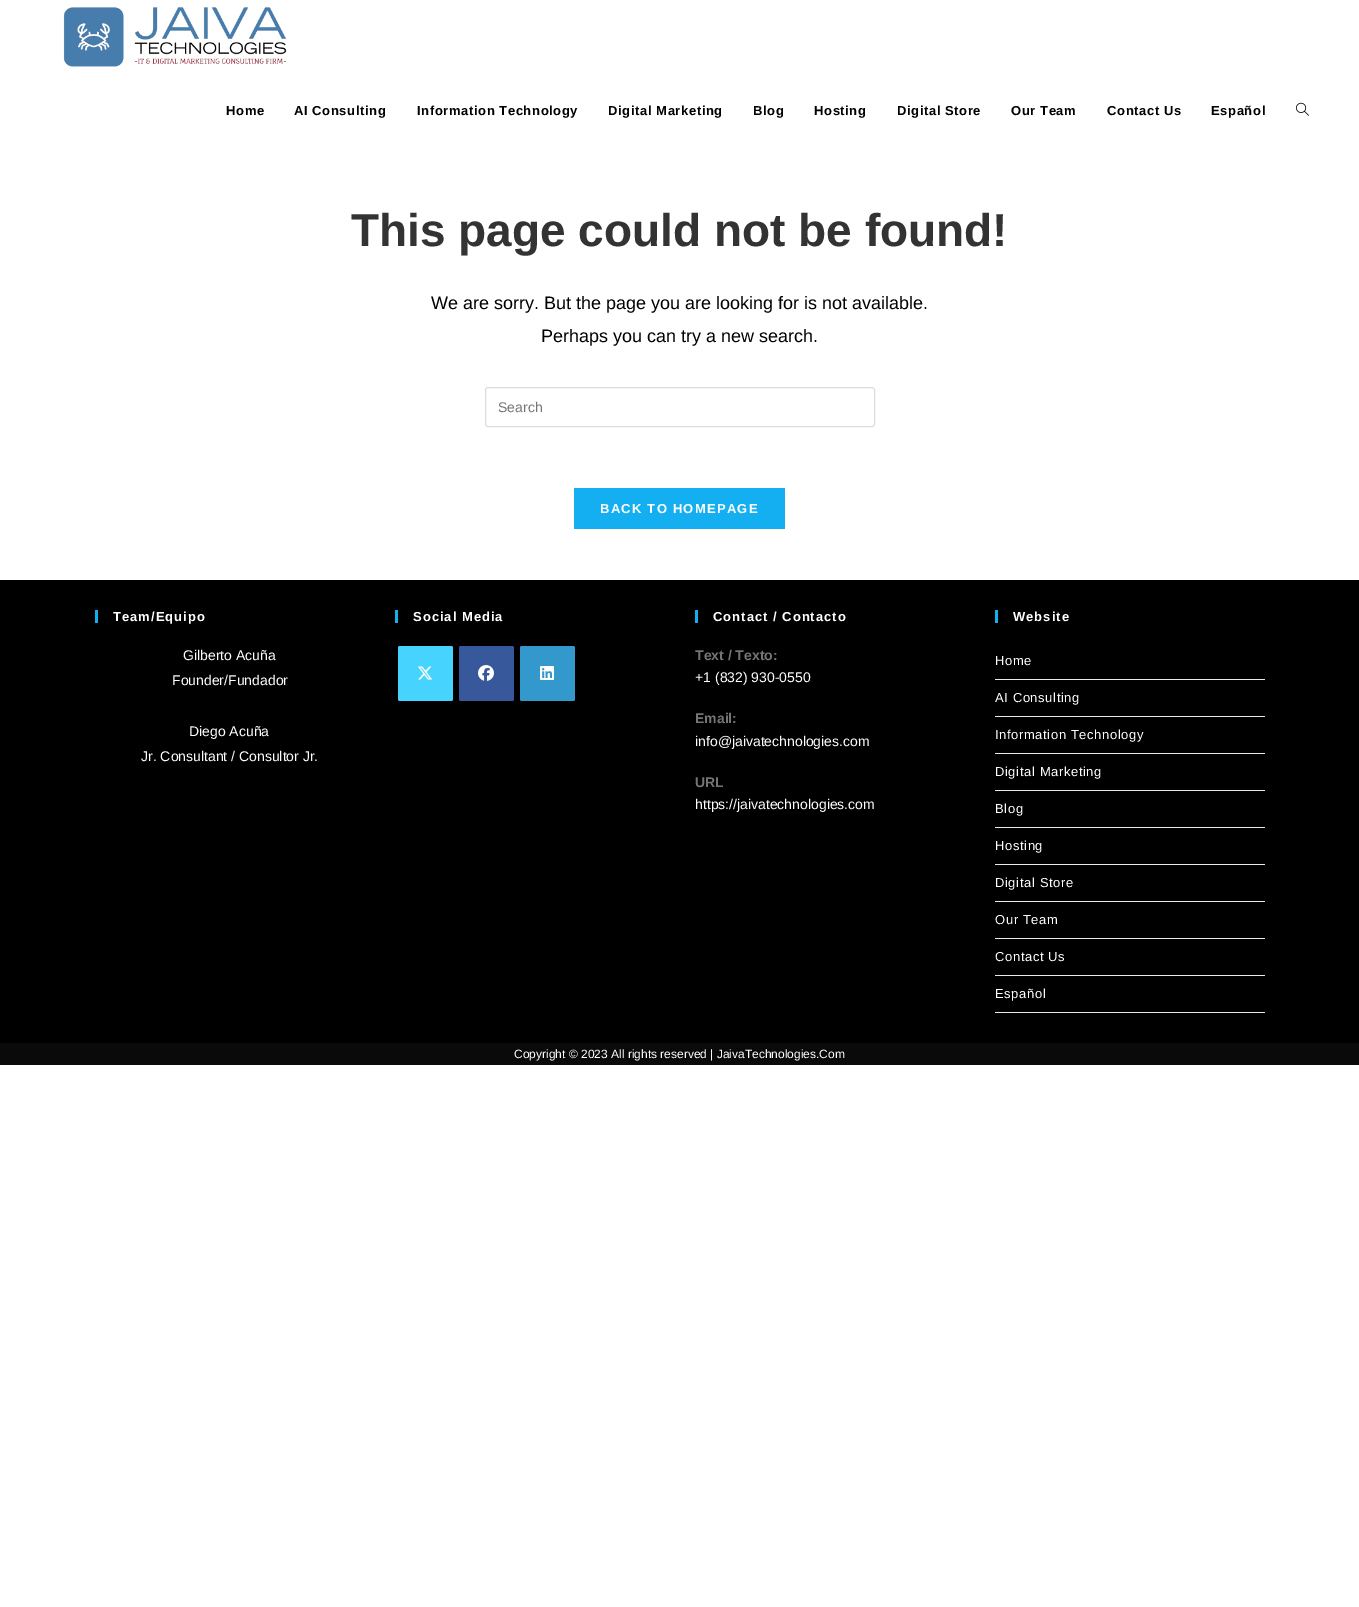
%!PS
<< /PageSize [1359 1607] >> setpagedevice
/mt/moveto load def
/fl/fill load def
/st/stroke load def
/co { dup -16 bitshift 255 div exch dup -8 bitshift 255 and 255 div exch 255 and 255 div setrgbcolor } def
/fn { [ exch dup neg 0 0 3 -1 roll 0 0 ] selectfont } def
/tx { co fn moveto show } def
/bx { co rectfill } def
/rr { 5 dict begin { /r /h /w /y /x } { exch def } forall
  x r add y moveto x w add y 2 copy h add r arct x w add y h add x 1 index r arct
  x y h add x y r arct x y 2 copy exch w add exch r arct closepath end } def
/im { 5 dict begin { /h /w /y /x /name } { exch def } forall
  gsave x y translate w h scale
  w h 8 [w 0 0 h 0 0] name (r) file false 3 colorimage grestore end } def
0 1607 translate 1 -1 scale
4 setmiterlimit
0 0 1359 1607 16#FFFFFF bx
(media/1.raw) 63 7 224 60 im
(media/2.raw) 1296 102 13 14 im
16#DDDDDD co
485.5 387.5 389 39 2.5 rr st
574 488 211 41 16#13AFF0 bx
0 580 1359 463 16#000000 bx
95 610 3 13 16#13AFF0 bx
395 610 3 13 16#13AFF0 bx
16#46D4FE co
398 646 55 55 2 rr fl
(media/3.raw) 418 666 15 14 im
16#37589B co
459 646 55 55 2 rr fl
(media/4.raw) 478 665 16 16 im
16#3399CC co
520 646 55 55 2 rr fl
(media/5.raw) 540 666 14 14 im
695 610 3 13 16#13AFF0 bx
995 610 3 13 16#13AFF0 bx
995 679 270 1 16#E9E9E9 bx
995 716 270 1 16#E9E9E9 bx
995 753 270 1 16#E9E9E9 bx
995 790 270 1 16#E9E9E9 bx
995 827 270 1 16#E9E9E9 bx
995 864 270 1 16#E9E9E9 bx
995 901 270 1 16#E9E9E9 bx
995 938 270 1 16#E9E9E9 bx
995 975 270 1 16#E9E9E9 bx
995 1012 270 1 16#E9E9E9 bx
0 1043 1359 22 16#0A0A0A bx
/LiberationSans-Bold 13 fn
16#000000 co
226 115 mt .6 0 (Home) ashow
294 115 mt .6 0 (AI Consulting) ashow
417 115 mt .6 0 (Information Technology) ashow
608 115 mt .6 0 (Digital Marketing) ashow
753 115 mt .6 0 (Blog) ashow
814 115 mt .6 0 (Hosting) ashow
897 115 mt .6 0 (Digital Store) ashow
1011 115 mt .6 0 (Our Team) ashow
1107 115 mt .6 0 (Contact Us) ashow
1211 115 mt .6 0 (Español) ashow
(This page could not be found!) 351 246 /LiberationSans-Bold 46 16#333333 tx
(We are sorry. But the page you are looking for is not available.) 431 309 /LiberationSans-Regular 18 16#000000 tx
(Perhaps you can try a new search.) 541 342 /LiberationSans-Regular 18 16#000000 tx
(Search) 498 412 /LiberationSans-Regular 14 16#757575 tx
/LiberationSans-Bold 13 fn
16#FFFFFF co
600 513 mt 1.25 0 (BACK TO HOMEPAGE) ashow
113 621 mt 1 0 (Team/Equipo) ashow
(Gilberto Acuña) 183 660 /LiberationSans-Regular 14 16#FFFFFF tx
(Founder/Fundador) 172 685 /LiberationSans-Regular 14 16#FFFFFF tx
(Diego Acuña) 189 736 /LiberationSans-Regular 14 16#FFFFFF tx
(Jr. Consultant / Consultor Jr.) 141 761 /LiberationSans-Regular 14 16#FFFFFF tx
/LiberationSans-Bold 13 fn
413 621 mt 1 0 (Social Media) ashow
713 621 mt 1 0 (Contact / Contacto) ashow
(Text / Texto:) 695 660 /LiberationSans-Bold 14 16#757575 tx
(+1 \(832\) 930-0550) 695 682 /LiberationSans-Regular 14 16#FFFFFF tx
(Email:) 695 723 /LiberationSans-Bold 14 16#757575 tx
(info@jaivatechnologies.com) 695 746 /LiberationSans-Regular 14 16#FFFFFF tx
(URL) 695 787 /LiberationSans-Bold 14 16#757575 tx
(https://jaivatechnologies.com) 695 809 /LiberationSans-Regular 14 16#FFFFFF tx
/LiberationSans-Bold 13 fn
1013 621 mt 1 0 (Website) ashow
/LiberationSans-Regular 13 fn
995 665 mt .6 0 (Home) ashow
995 702 mt .6 0 (AI Consulting) ashow
995 739 mt .6 0 (Information Technology) ashow
995 776 mt .6 0 (Digital Marketing) ashow
995 813 mt .6 0 (Blog) ashow
995 850 mt .6 0 (Hosting) ashow
995 887 mt .6 0 (Digital Store) ashow
995 924 mt .6 0 (Our Team) ashow
995 961 mt .6 0 (Contact Us) ashow
995 998 mt .6 0 (Español) ashow
(Copyright © 2023 All rights reserved | JaivaTechnologies.Com) 514 1058 /LiberationSans-Regular 12 16#FFFFFF tx
showpage
